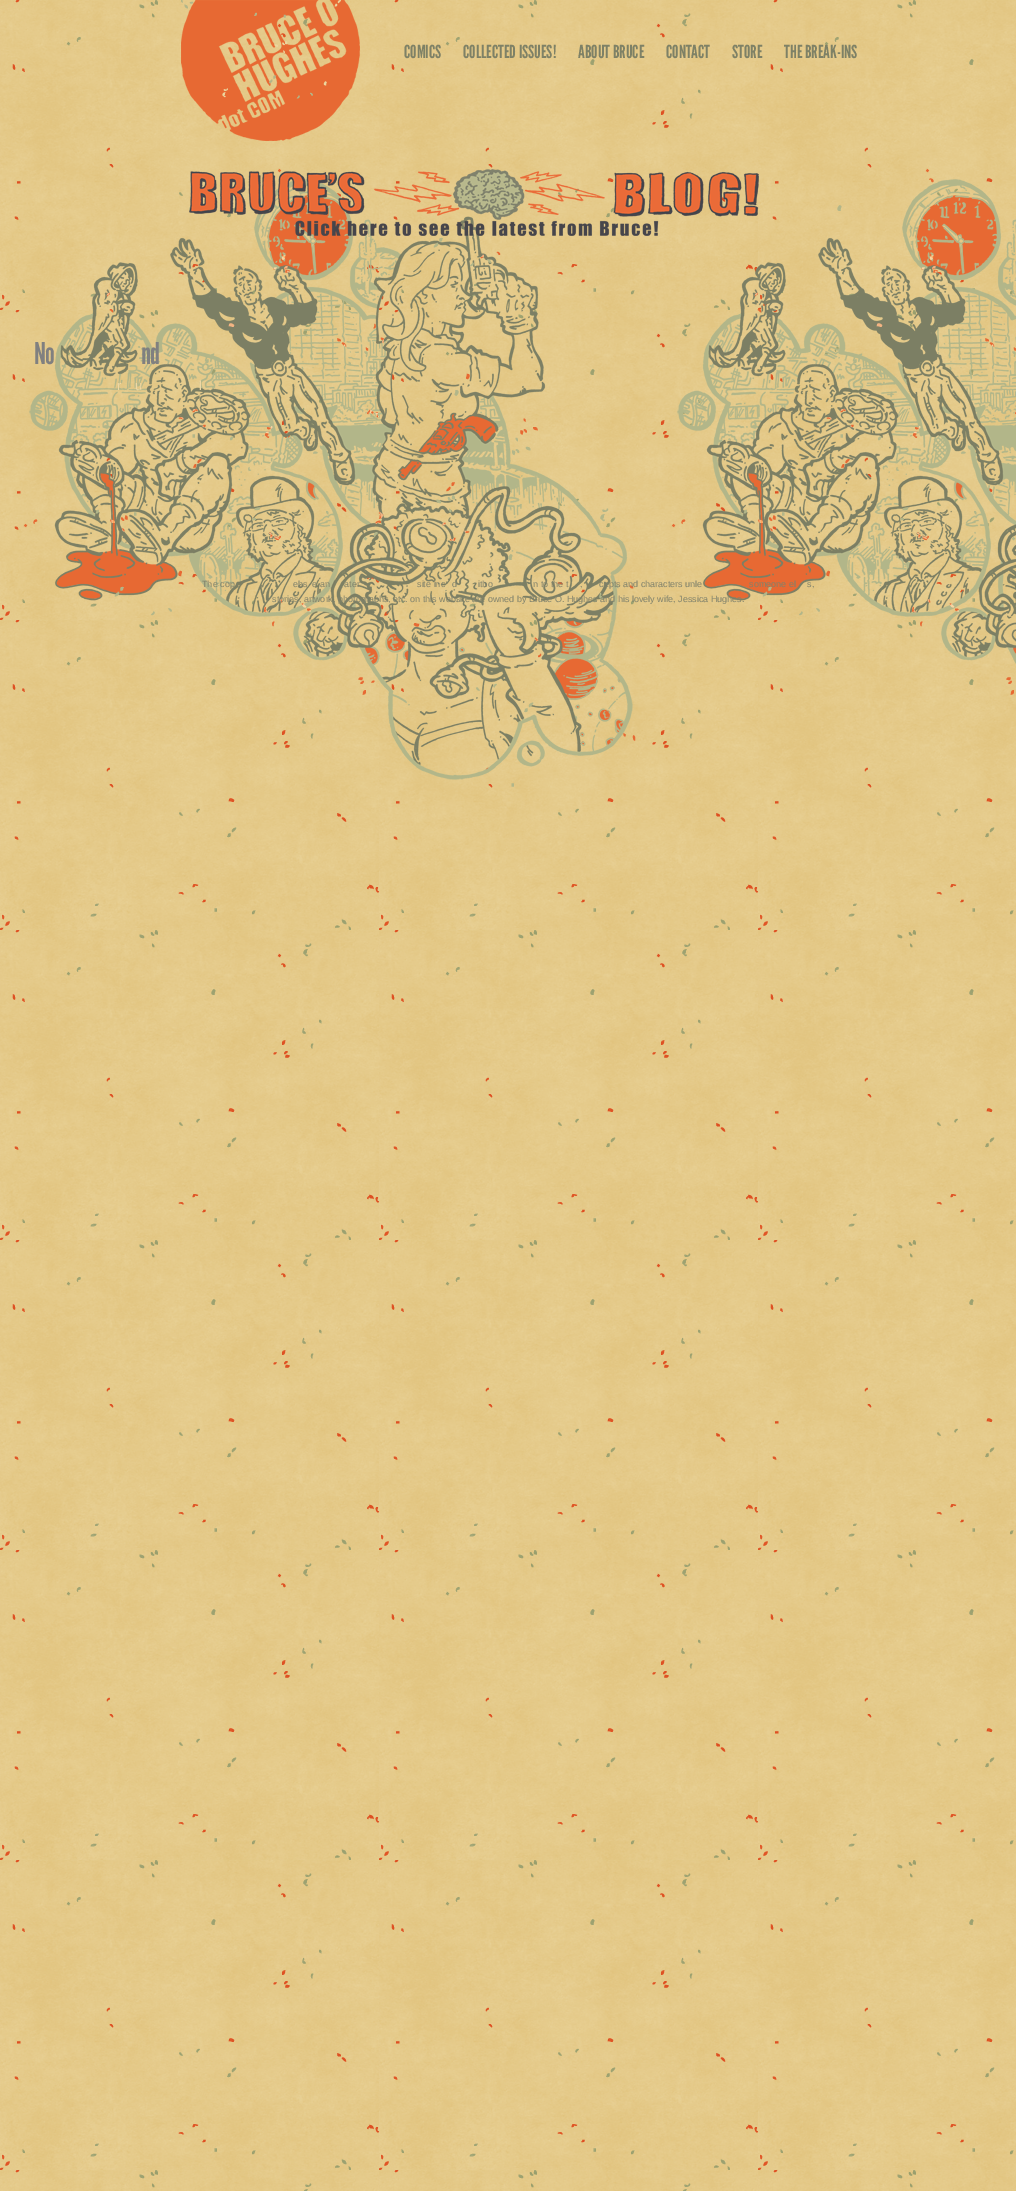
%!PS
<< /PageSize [1016 2191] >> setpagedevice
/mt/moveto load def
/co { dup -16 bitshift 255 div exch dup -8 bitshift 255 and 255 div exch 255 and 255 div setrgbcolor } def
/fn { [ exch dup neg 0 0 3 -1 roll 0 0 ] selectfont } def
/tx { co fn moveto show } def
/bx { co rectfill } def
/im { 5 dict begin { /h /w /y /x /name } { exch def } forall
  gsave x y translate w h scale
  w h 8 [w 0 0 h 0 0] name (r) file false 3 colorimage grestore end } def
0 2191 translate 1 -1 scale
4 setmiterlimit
0 0 1016 2191 16#FFFFFF bx
(media/1.raw) 0 0 1016 2191 im
(media/2.raw) 181 0 179 141 im
(media/4.raw) 23 168 993 619 im
(media/3.raw) 189 169 570 67 im
(COMICS) 404 58 /LeagueGothic-Regular 18 16#7E8166 tx
(COLLECTED ISSUES!) 463 58 /LeagueGothic-Regular 18 16#7E8166 tx
(ABOUT BRUCE) 578 58 /LeagueGothic-Regular 18 16#7E8166 tx
(CONTACT) 666 58 /LeagueGothic-Regular 18 16#7E8166 tx
(STORE) 732 58 /LeagueGothic-Regular 18 16#7E8166 tx
(THE BREAK-INS) 784 58 /LeagueGothic-Regular 18 16#7E8166 tx
/LeagueGothic-Regular 30 fn
16#808080 co
34 364 mt -1 0 (No) ashow
141 364 mt -1 0 (nd) ashow
(r) 117 390 /LiberationSans-Regular 13 16#EFD8A4 tx
(u) 135 390 /LiberationSans-Regular 13 16#EFD8A4 tx
(l) 199 390 /LiberationSans-Regular 13 16#EFD8A4 tx
(The cop) 202 587 /LiberationSans-Regular 9 16#80826C tx
(ebs) 293 587 /LiberationSans-Regular 9 16#80826C tx
(e an) 312 587 /LiberationSans-Regular 9 16#80826C tx
(ater) 344 587 /LiberationSans-Regular 9 16#80826C tx
(site inc) 417 587 /LiberationSans-Regular 9 16#80826C tx
(d) 452 587 /LiberationSans-Regular 9 16#80826C tx
(itho) 478 587 /LiberationSans-Regular 9 16#80826C tx
(n to the t) 533 587 /LiberationSans-Regular 9 16#80826C tx
(,) 580 587 /LiberationSans-Regular 9 16#80826C tx
(cepts and characters unle) 599 587 /LiberationSans-Regular 9 16#80826C tx
(someone el) 749 587 /LiberationSans-Regular 9 16#80826C tx
(s,) 807 587 /LiberationSans-Regular 9 16#80826C tx
(stories, artwork, photographs, etc. on this website are owned by Bruce O. Hughes and his lovely wife, Jessica Hughes.) 272 602 /LiberationSans-Regular 9 16#80826C tx
showpage
